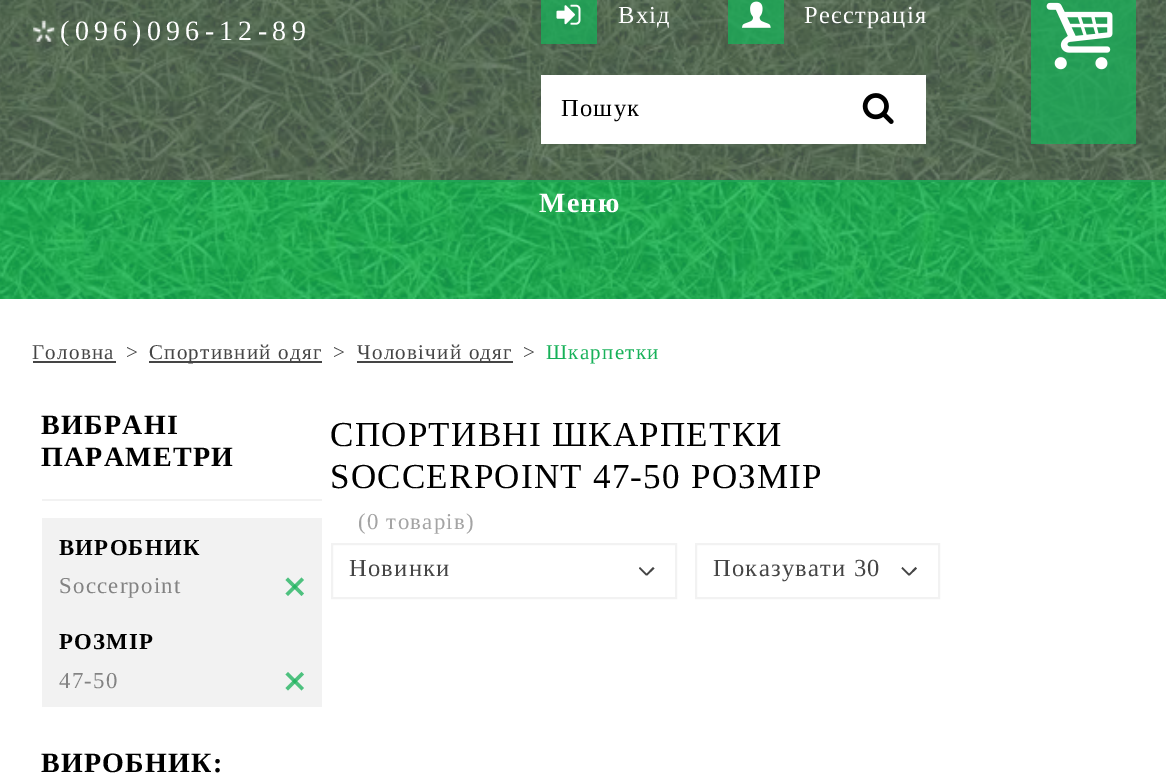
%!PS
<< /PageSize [1166 776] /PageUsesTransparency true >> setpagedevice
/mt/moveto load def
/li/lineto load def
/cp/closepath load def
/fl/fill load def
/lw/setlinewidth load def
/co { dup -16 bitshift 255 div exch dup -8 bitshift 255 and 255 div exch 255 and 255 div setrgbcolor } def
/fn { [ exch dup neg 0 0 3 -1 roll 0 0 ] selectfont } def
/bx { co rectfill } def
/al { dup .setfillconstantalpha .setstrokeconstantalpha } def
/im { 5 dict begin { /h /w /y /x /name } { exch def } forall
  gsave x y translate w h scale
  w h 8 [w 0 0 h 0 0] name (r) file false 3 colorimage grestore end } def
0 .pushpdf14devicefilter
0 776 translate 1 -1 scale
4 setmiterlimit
0 0 1166 776 16#FFFFFF bx
(media/1.raw) 0 0 1166 299 im
0.8 al
0 0 1166 182 16#546059 bx
1 al
(media/2.raw) 33 20 22 22 im
0.75 al
541 0 56 44 16#17B159 bx
1 al
(media/3.raw) 556 4 25 21 im
0.75 al
728 0 56 44 16#17B159 bx
1 al
(media/4.raw) 742 1 29 27 im
541 75 385 69 16#FFFFFF bx
(media/5.raw) 862 93 32 31 im
0.75 al
1031 0 105 144 16#17B159 bx
1 al
(media/6.raw) 1046 2 67 68 im
0.8 al
0 180 1166 119 16#17B159 bx
1 al
33 361 83 2 16#454545 bx
149 361 173 2 16#454545 bx
357 361 156 2 16#454545 bx
42 499 280 2 16#F2F2F2 bx
42 518 280 189 16#F2F2F2 bx
16#4EC17F co
288 577.5 mt 304 593.5 li 301.5 596 li 285.5 580 li cp fl
0.75 al
16#17B159 co
285.5 593.5 mt 301.5 577.5 li 304 580 li 288 596 li cp fl
1 al
16#4EC17F co
288 672 mt 304 688 li 301.5 690.5 li 285.5 674.5 li cp fl
0.75 al
16#17B159 co
285.5 688 mt 301.5 672 li 304 674.5 li 288 690.5 li cp fl
1 al
16#F2F2F2 co
2 lw
332 544 344 54 rectstroke
16#454545 co
646 575.5 mt 639 568.5 li 640 567 li 647.5 574.5 li cp fl
646 574.5 mt 653 567 li 654.5 568.5 li 647 575.5 li cp fl
16#F2F2F2 co
696 544 243 54 rectstroke
16#454545 co
908.5 575.5 mt 901.5 568.5 li 902.5 567 li 910 574.5 li cp fl
908.5 574.5 mt 915.5 567 li 917 568.5 li 909.5 575.5 li cp fl
/LiberationSerif-Regular 28 fn
16#FFFFFF co
60 40 mt 5.25 0 (\(096\)096-12-89) ashow
/LiberationSerif-Regular 24.5 fn
618 23 mt 1.25 0 (Вхід) ashow
804 23 mt 1.25 0 (Реєстрація) ashow
16#000000 co
561 116 mt 1.25 0 (Пошук) ashow
/LiberationSerif-Bold 28 fn
16#FFFFFF co
539 212 mt 1.25 0 (Меню) ashow
/LiberationSerif-Regular 21 fn
16#454545 co
32 359 mt 1.25 0 (Головна) ashow
126 359 mt 1.25 0 (>) ashow
149 359 mt 1.25 0 (Спортивний одяг) ashow
333 359 mt 1.25 0 (>) ashow
357 359 mt 1.25 0 (Чоловічий одяг) ashow
523 359 mt 1.25 0 (>) ashow
16#17B159 co
546 359 mt 1.25 0 (Шкарпетки) ashow
/LiberationSerif-Bold 28 fn
16#000000 co
41 434 mt 1.25 0 (ВИБРАНІ) ashow
41 466 mt 1.25 0 (ПАРАМЕТРИ) ashow
/LiberationSerif-Bold 22.75 fn
59 555 mt 1.25 0 (ВИРОБНИК) ashow
/LiberationSerif-Regular 22.75 fn
16#838383 co
59 593 mt 1.25 0 (Soccerpoint) ashow
/LiberationSerif-Bold 22.75 fn
16#000000 co
59 649 mt 1.25 0 (РОЗМІР) ashow
/LiberationSerif-Regular 22.75 fn
16#838383 co
59 688 mt 1.25 0 (47-50) ashow
/LiberationSerif-Bold 28 fn
16#000000 co
41 772 mt 1.25 0 (ВИРОБНИК:) ashow
/LiberationSerif-Regular 35 fn
330 446 mt 1.25 0 (СПОРТИВНІ ШКАРПЕТКИ) ashow
330 488 mt 1.25 0 (SOCCERPOINT 47-50 РОЗМІР) ashow
/LiberationSerif-Regular 22.75 fn
16#A4A4A4 co
358 529 mt 1.25 0 (\(0 товарів\)) ashow
/LiberationSerif-Regular 24.5 fn
16#454545 co
349 576 mt 1.25 0 (Новинки) ashow
713 576 mt 1.25 0 (Показувати 30) ashow
.poppdf14devicefilter showpage
